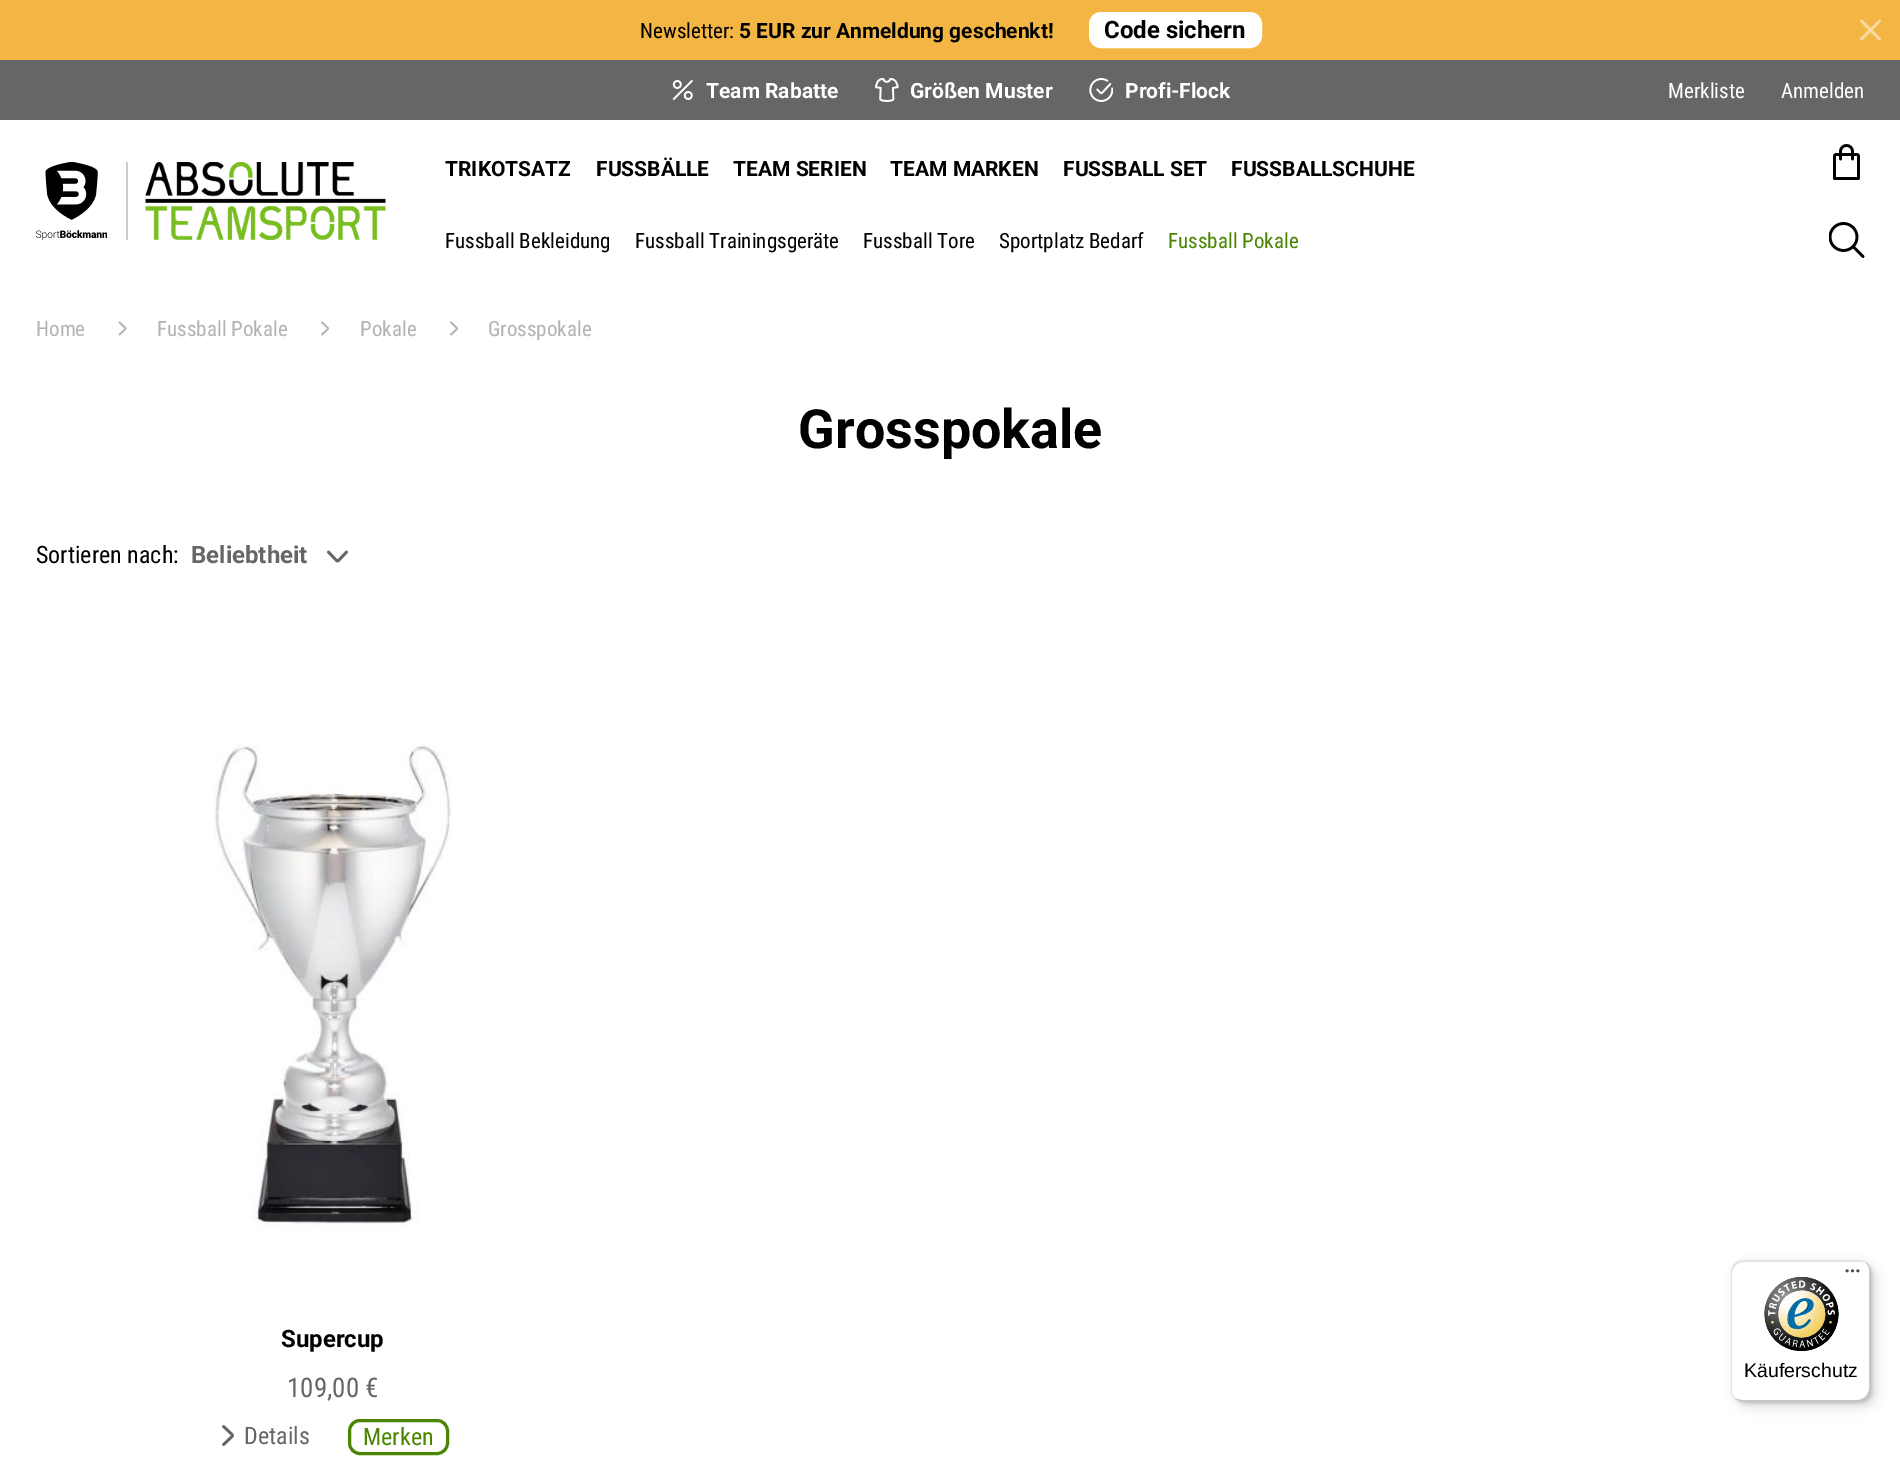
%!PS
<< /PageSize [1900 1482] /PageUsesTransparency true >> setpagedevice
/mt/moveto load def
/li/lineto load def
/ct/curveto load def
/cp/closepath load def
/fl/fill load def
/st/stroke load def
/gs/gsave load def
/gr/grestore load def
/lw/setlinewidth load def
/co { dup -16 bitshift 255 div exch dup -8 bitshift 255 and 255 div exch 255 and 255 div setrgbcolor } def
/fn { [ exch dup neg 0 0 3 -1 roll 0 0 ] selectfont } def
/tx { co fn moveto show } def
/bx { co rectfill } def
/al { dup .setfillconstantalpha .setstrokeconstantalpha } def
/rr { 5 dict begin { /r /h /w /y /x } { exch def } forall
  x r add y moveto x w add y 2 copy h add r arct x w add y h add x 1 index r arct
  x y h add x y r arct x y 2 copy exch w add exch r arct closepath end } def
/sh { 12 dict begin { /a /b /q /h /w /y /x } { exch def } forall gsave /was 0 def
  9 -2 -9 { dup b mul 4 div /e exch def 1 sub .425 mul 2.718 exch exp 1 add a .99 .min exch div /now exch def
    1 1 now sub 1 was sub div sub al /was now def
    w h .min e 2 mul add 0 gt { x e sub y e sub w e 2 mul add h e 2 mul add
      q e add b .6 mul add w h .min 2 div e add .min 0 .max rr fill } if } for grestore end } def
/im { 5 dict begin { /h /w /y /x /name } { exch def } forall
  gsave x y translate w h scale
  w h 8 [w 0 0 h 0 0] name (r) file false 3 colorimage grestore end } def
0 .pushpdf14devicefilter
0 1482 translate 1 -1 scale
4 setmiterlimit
0 0 1900 1482 16#FFFFFF bx
0 0 1900 60 16#F3B544 bx
16#FFFFFF co
1090.5 13.5 170 33 10.5 rr gs fl gr
3 lw
st
(media/1.raw) 1860 19 21 22 im
0 60 1900 60 16#666666 bx
(media/2.raw) 672 80 21 20 im
(media/3.raw) 875 78 24 24 im
(media/4.raw) 1089 78 24 24 im
(media/5.raw) 36 162 71 78 im
126 162 2 78 16#CCCCCC bx
(media/6.raw) 145 162 241 78 im
(media/7.raw) 1829 222 36 36 im
(media/8.raw) 1833 144 27 36 im
(media/9.raw) 118 321 9 15 im
(media/10.raw) 321 321 8 15 im
(media/10.raw) 450 321 8 15 im
(media/11.raw) 327 550 21 13 im
(media/12.raw) 214 743 237 487 im
(media/13.raw) 222 1425 12 21 im
16#4A8500 co
349.5 1420.5 98 33 10.5 rr st
16#000000 co
1736 1265 139 141 12 6 .15 sh
1733 1262 139 141 12 1.5 .15 sh
16#FFFFFF co
1731 1260 140 141 12 rr fl
0.1 al
16#000000 co
1744 1262 mt 1860 1262 li 1864 1262 1868 1264 1870 1267 ct 1868 1263 1864 1260 1859 1260 ct 1743 1260 li 1736 1260 1731 1265 1731 1272 ct 1731 1389 li 1731 1393 1733 1396 1735 1398 ct 1733 1396 1732 1393 1732 1390 ct 1732 1274 li 1732 1267 1738 1262 1744 1262 ct cp fl
0.2 al
1734 1397 mt 1736 1399 1739 1401 1743 1401 ct 1859 1401 li 1866 1401 1871 1396 1871 1389 ct 1871 1272 li 1871 1268 1869 1265 1866 1262 ct 1868 1265 1869 1267 1869 1270 ct 1869 1388 li 1869 1394 1864 1400 1857 1400 ct 1742 1400 li 1739 1400 1736 1399 1734 1397 ct cp fl
16#323232 co
1735 1398 mt 1737 1400 1740 1401 1743 1401 ct 1859 1401 li 1866 1401 1871 1396 1871 1389 ct 1871 1272 li 1871 1268 1869 1265 1867 1263 ct 1869 1265 1870 1268 1870 1271 ct 1870 1388 li 1870 1395 1864 1400 1858 1400 ct 1742 1400 li 1739 1400 1737 1399 1735 1398 ct cp fl
0.3 al
16#FFFFFF co
1734 1397 mt 1736 1399 1739 1401 1743 1401 ct 1859 1401 li 1866 1401 1871 1396 1871 1389 ct 1871 1272 li 1871 1267 1869 1264 1865 1262 ct 1868 1264 1870 1267 1870 1271 ct 1870 1388 li 1870 1395 1864 1400 1858 1400 ct 1742 1400 li 1739 1400 1736 1399 1734 1397 ct cp fl
1 al
(media/14.raw) 1845 1269 15 4 im
(media/15.raw) 1764 1277 75 75 im
(Newsletter:) 640 38 /RobotoCondensed-Regular 21 16#000000 tx
(5 EUR zur Anmeldung geschenkt!) 739 38 /Roboto-Bold 21 16#000000 tx
(Code sichern) 1104 38 /Roboto-Bold 24 16#000000 tx
(Team Rabatte) 706 98 /Roboto-Bold 21 16#FFFFFF tx
(Größen Muster) 910 98 /Roboto-Bold 21 16#FFFFFF tx
(Profi-Flock) 1125 98 /Roboto-Bold 21 16#FFFFFF tx
(Merkliste) 1668 98 /RobotoCondensed-Regular 21 16#FFFFFF tx
(Anmelden) 1781 98 /RobotoCondensed-Regular 21 16#FFFFFF tx
(TRIKOTSATZ) 445 176 /Roboto-Bold 21 16#000000 tx
(FUSSBÄLLE) 596 176 /Roboto-Bold 21 16#000000 tx
(TEAM SERIEN) 733 176 /Roboto-Bold 21 16#000000 tx
(TEAM MARKEN) 890 176 /Roboto-Bold 21 16#000000 tx
(FUSSBALL SET) 1063 176 /Roboto-Bold 21 16#000000 tx
(FUSSBALLSCHUHE) 1231 176 /Roboto-Bold 21 16#000000 tx
(Fussball Bekleidung) 445 248 /RobotoCondensed-Regular 21 16#000000 tx
(Fussball Trainingsgeräte) 635 248 /RobotoCondensed-Regular 21 16#000000 tx
(Fussball Tore) 863 248 /RobotoCondensed-Regular 21 16#000000 tx
(Sportplatz Bedarf) 999 248 /RobotoCondensed-Regular 21 16#000000 tx
(Fussball Pokale) 1168 248 /RobotoCondensed-Regular 21 16#4A8500 tx
(Home) 36 336 /RobotoCondensed-Regular 21 16#B3B3B3 tx
(Fussball Pokale) 157 336 /RobotoCondensed-Regular 21 16#B3B3B3 tx
(Pokale) 360 336 /RobotoCondensed-Regular 21 16#B3B3B3 tx
(Grosspokale) 488 336 /RobotoCondensed-Regular 21 16#B3B3B3 tx
(Grosspokale) 798 448 /Roboto-Bold 54 16#000000 tx
(Sortieren nach:) 36 563 /RobotoCondensed-Regular 24 16#000000 tx
(Beliebtheit) 191 563 /Roboto-Bold 24 16#666666 tx
(Supercup) 281 1347 /Roboto-Bold 24 16#000000 tx
(109,00 €) 287 1397 /RobotoCondensed-Regular 27 16#666666 tx
(Details) 244 1444 /RobotoCondensed-Regular 24 16#666666 tx
(Merken) 363 1445 /RobotoCondensed-Regular 24 16#4A8500 tx
(Käuferschutz) 1744 1377 /LiberationSans-Regular 19.5 16#000000 tx
.poppdf14devicefilter showpage
